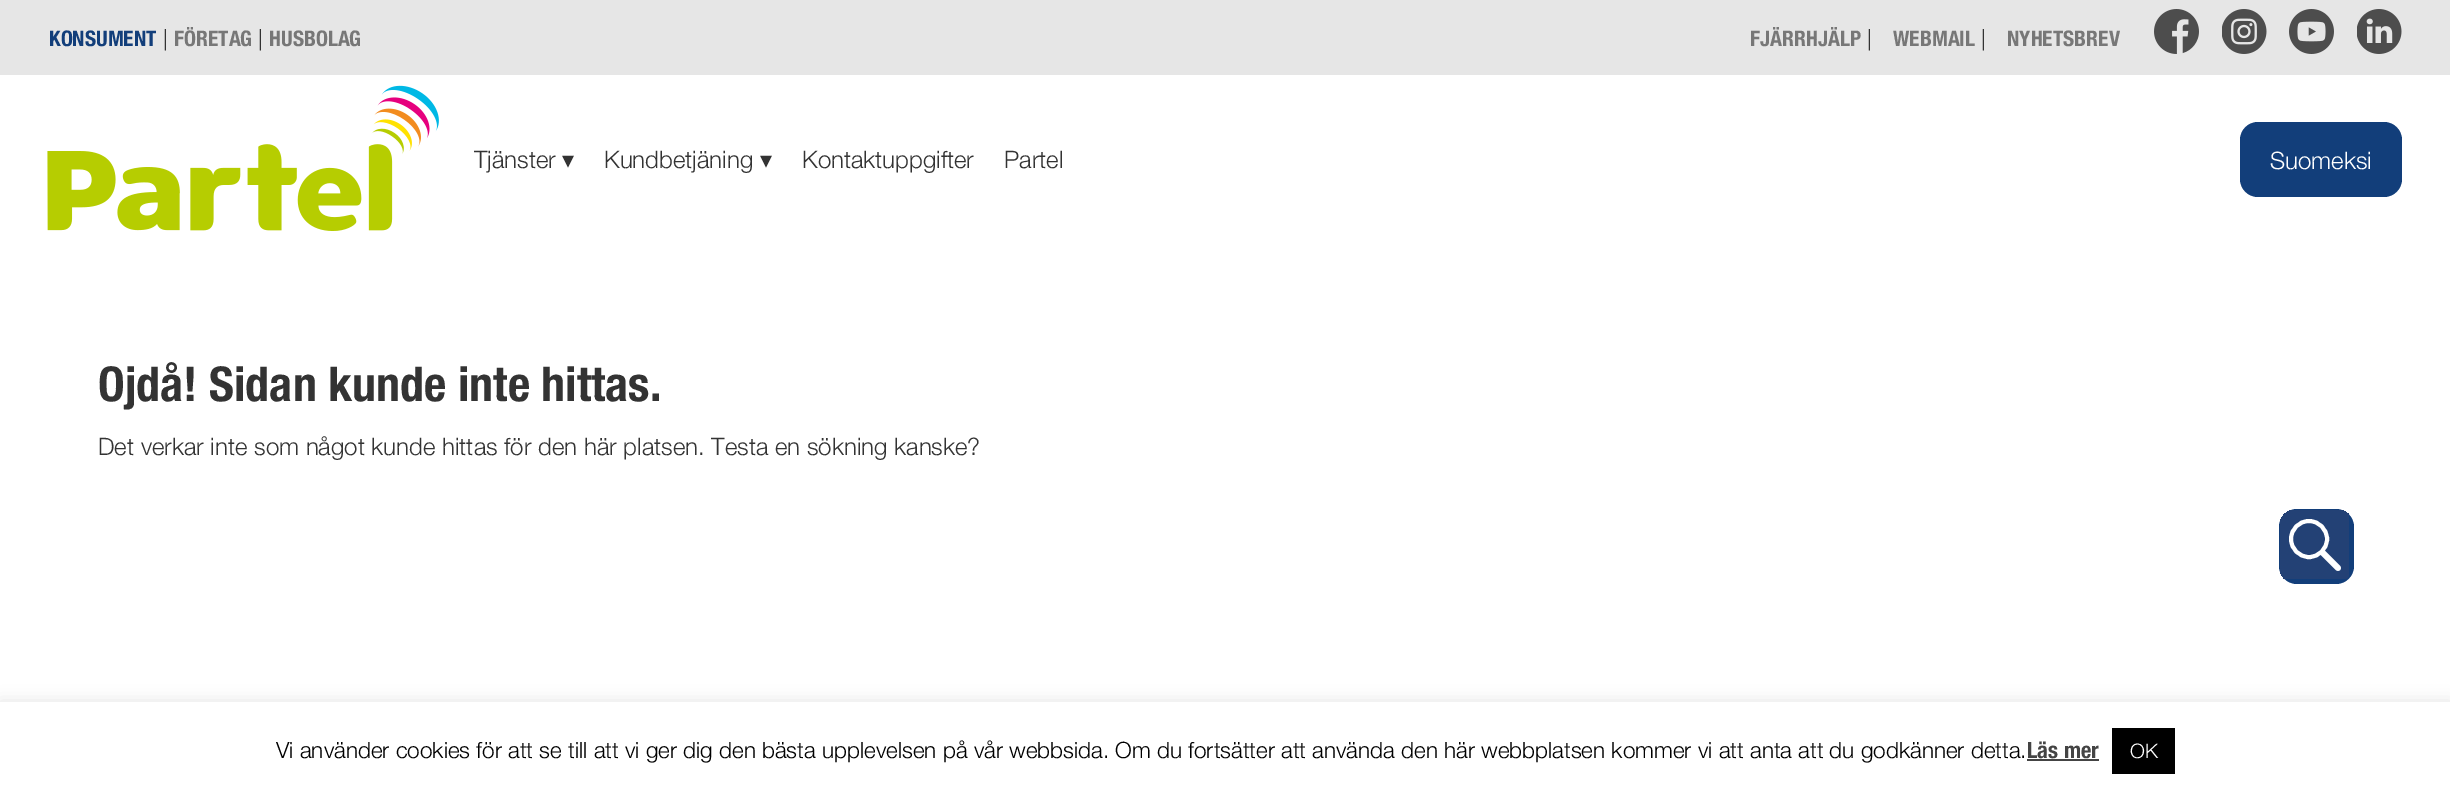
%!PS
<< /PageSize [2450 791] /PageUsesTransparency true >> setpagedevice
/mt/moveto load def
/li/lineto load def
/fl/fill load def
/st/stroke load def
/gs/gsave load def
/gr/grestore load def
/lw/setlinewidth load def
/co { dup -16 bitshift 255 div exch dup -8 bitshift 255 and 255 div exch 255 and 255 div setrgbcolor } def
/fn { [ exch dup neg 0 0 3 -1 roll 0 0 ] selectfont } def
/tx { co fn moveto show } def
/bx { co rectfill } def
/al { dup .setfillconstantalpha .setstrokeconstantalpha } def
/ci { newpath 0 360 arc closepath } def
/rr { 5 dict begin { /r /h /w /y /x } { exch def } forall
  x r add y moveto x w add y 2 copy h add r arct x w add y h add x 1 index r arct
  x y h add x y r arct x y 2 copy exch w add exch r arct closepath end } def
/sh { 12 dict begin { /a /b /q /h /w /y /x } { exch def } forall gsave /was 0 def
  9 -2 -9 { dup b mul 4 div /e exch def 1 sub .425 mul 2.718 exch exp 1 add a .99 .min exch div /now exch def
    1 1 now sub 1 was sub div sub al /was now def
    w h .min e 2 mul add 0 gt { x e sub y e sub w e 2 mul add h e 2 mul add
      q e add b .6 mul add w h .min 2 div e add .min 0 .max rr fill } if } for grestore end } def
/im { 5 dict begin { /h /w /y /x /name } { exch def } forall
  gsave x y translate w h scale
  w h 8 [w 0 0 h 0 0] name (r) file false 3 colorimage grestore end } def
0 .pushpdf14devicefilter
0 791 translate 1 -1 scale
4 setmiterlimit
0 0 2450 791 16#FFFFFF bx
0 0 2450 75 16#E6E6E6 bx
(media/1.raw) 2154 9 45 45 im
(media/2.raw) 2222 9 45 45 im
(media/3.raw) 2289 9 45 45 im
(media/4.raw) 2357 9 45 45 im
(media/5.raw) 47 85 392 146 im
16#123E7A co
2240 122 162 75 18 rr fl
2279 509 75 75 18 rr fl
gs
2279 509 75 75 18 rr clip newpath
16#234175 co
2280 510 69 69 4 rr fl
gr
16#FFFFFF co
5.9 lw
1 setlinecap
2309 539 mt 2338 568 li st
16#234175 co
2309 539 18 ci gs fl gr
16#FFFFFF co
3.9 lw
0 setlinecap
st
16#ACABAB co
0 701 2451 90 0 7.5 .3 sh
0 702 2450 89 16#FFFFFF bx
2027 759 72 2 16#444444 bx
2112 728 63 46 16#000000 bx
(KONSUMENT) 49 46 /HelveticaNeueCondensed-Bold 21.5 16#123E7A tx
(|) 163 46 /HelveticaNeue-Light 21.5 16#333333 tx
(FÖRETAG) 174 46 /HelveticaNeueCondensed-Bold 21.5 16#777777 tx
(|) 258 46 /HelveticaNeue-Light 21.5 16#333333 tx
(HUSBOLAG) 269 46 /HelveticaNeueCondensed-Bold 21.5 16#777777 tx
(FJÄRRHJÄLP) 1750 46 /HelveticaNeueCondensed-Bold 21.5 16#777777 tx
(|) 1867 46 /HelveticaNeue-Light 21.5 16#333333 tx
(WEBMAIL) 1893 46 /HelveticaNeueCondensed-Bold 21.5 16#777777 tx
(|) 1981 46 /HelveticaNeue-Light 21.5 16#333333 tx
(NYHETSBREV) 2007 46 /HelveticaNeueCondensed-Bold 21.5 16#777777 tx
(Tjänster) 474 168 /HelveticaNeue-Light 24 16#333333 tx
(▾) 562 168 /DejaVuSans-Regular 24 16#333333 tx
(Kundbetjäning) 604 168 /HelveticaNeue-Light 24 16#333333 tx
(▾) 760 168 /DejaVuSans-Regular 24 16#333333 tx
(Kontaktuppgifter) 802 168 /HelveticaNeue-Light 24 16#333333 tx
(Partel) 1004 168 /HelveticaNeue-Light 24 16#333333 tx
(Suomeksi) 2270 169 /HelveticaNeue-Light 24 16#FFFFFF tx
(Ojdå! Sidan kunde inte hittas.) 98 401 /HelveticaNeueCondensed-Bold 48 16#333333 tx
(Det verkar inte som något kunde hittas för den här platsen. Testa en sökning kanske?) 98 455 /HelveticaNeue-Light 24 16#333333 tx
(Vi använder cookies för att se till att vi ger dig den bästa upplevelsen på vår webbsida. Om du fortsätter att använda den här webbplatsen kommer vi att anta att du godkänner detta.) 276 758 /HelveticaNeue-Light 22.5 16#000000 tx
(Läs mer) 2027 758 /HelveticaNeueCondensed-Bold 22.5 16#444444 tx
(OK) 2130 758 /HelveticaNeue-Light 20 16#FFFFFF tx
.poppdf14devicefilter showpage
